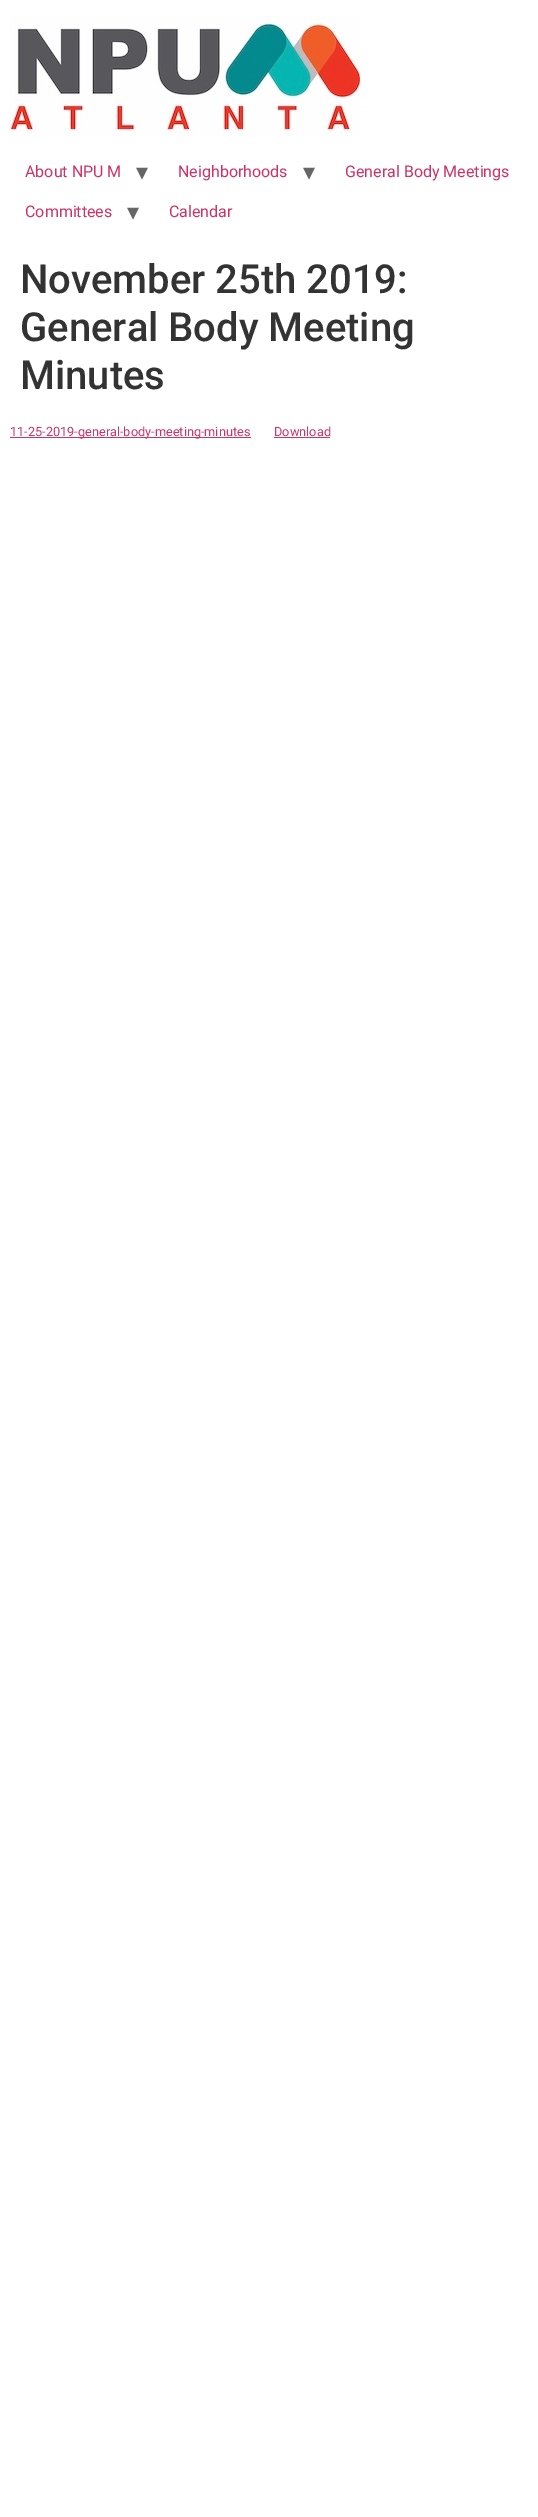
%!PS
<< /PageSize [538 2517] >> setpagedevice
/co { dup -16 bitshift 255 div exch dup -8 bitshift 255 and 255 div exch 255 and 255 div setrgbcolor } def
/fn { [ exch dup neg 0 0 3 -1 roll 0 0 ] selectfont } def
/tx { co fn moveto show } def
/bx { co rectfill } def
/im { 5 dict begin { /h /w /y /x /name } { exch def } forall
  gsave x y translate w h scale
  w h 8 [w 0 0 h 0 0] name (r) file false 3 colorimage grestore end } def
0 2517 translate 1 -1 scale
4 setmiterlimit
0 0 538 2517 16#FFFFFF bx
(media/1.raw) 10 16 350 121 im
10 437 241 1 16#CC3366 bx
274 437 56 1 16#CC3366 bx
(About NPU M) 25 177 /Roboto-Regular 16 16#CC3366 tx
(▾) 136 180 /DejaVuSans-Regular 24 16#666666 tx
(Neighborhoods) 178 177 /Roboto-Regular 16 16#CC3366 tx
(▾) 303 180 /DejaVuSans-Regular 24 16#666666 tx
(General Body Meetings) 345 177 /Roboto-Regular 16 16#CC3366 tx
(Committees) 25 217 /Roboto-Regular 16 16#CC3366 tx
(▾) 127 220 /DejaVuSans-Regular 24 16#666666 tx
(Calendar) 169 217 /Roboto-Regular 16 16#CC3366 tx
(November 25th 2019:) 20 293 /Roboto-Medium 40 16#333333 tx
(General Body Meeting) 20 341 /Roboto-Medium 40 16#333333 tx
(Minutes) 20 389 /Roboto-Medium 40 16#333333 tx
(11-25-2019-general-body-meeting-minutes) 10 436 /Roboto-Regular 12.75 16#CC3366 tx
(Download) 274 436 /Roboto-Regular 12.75 16#CC3366 tx
showpage
